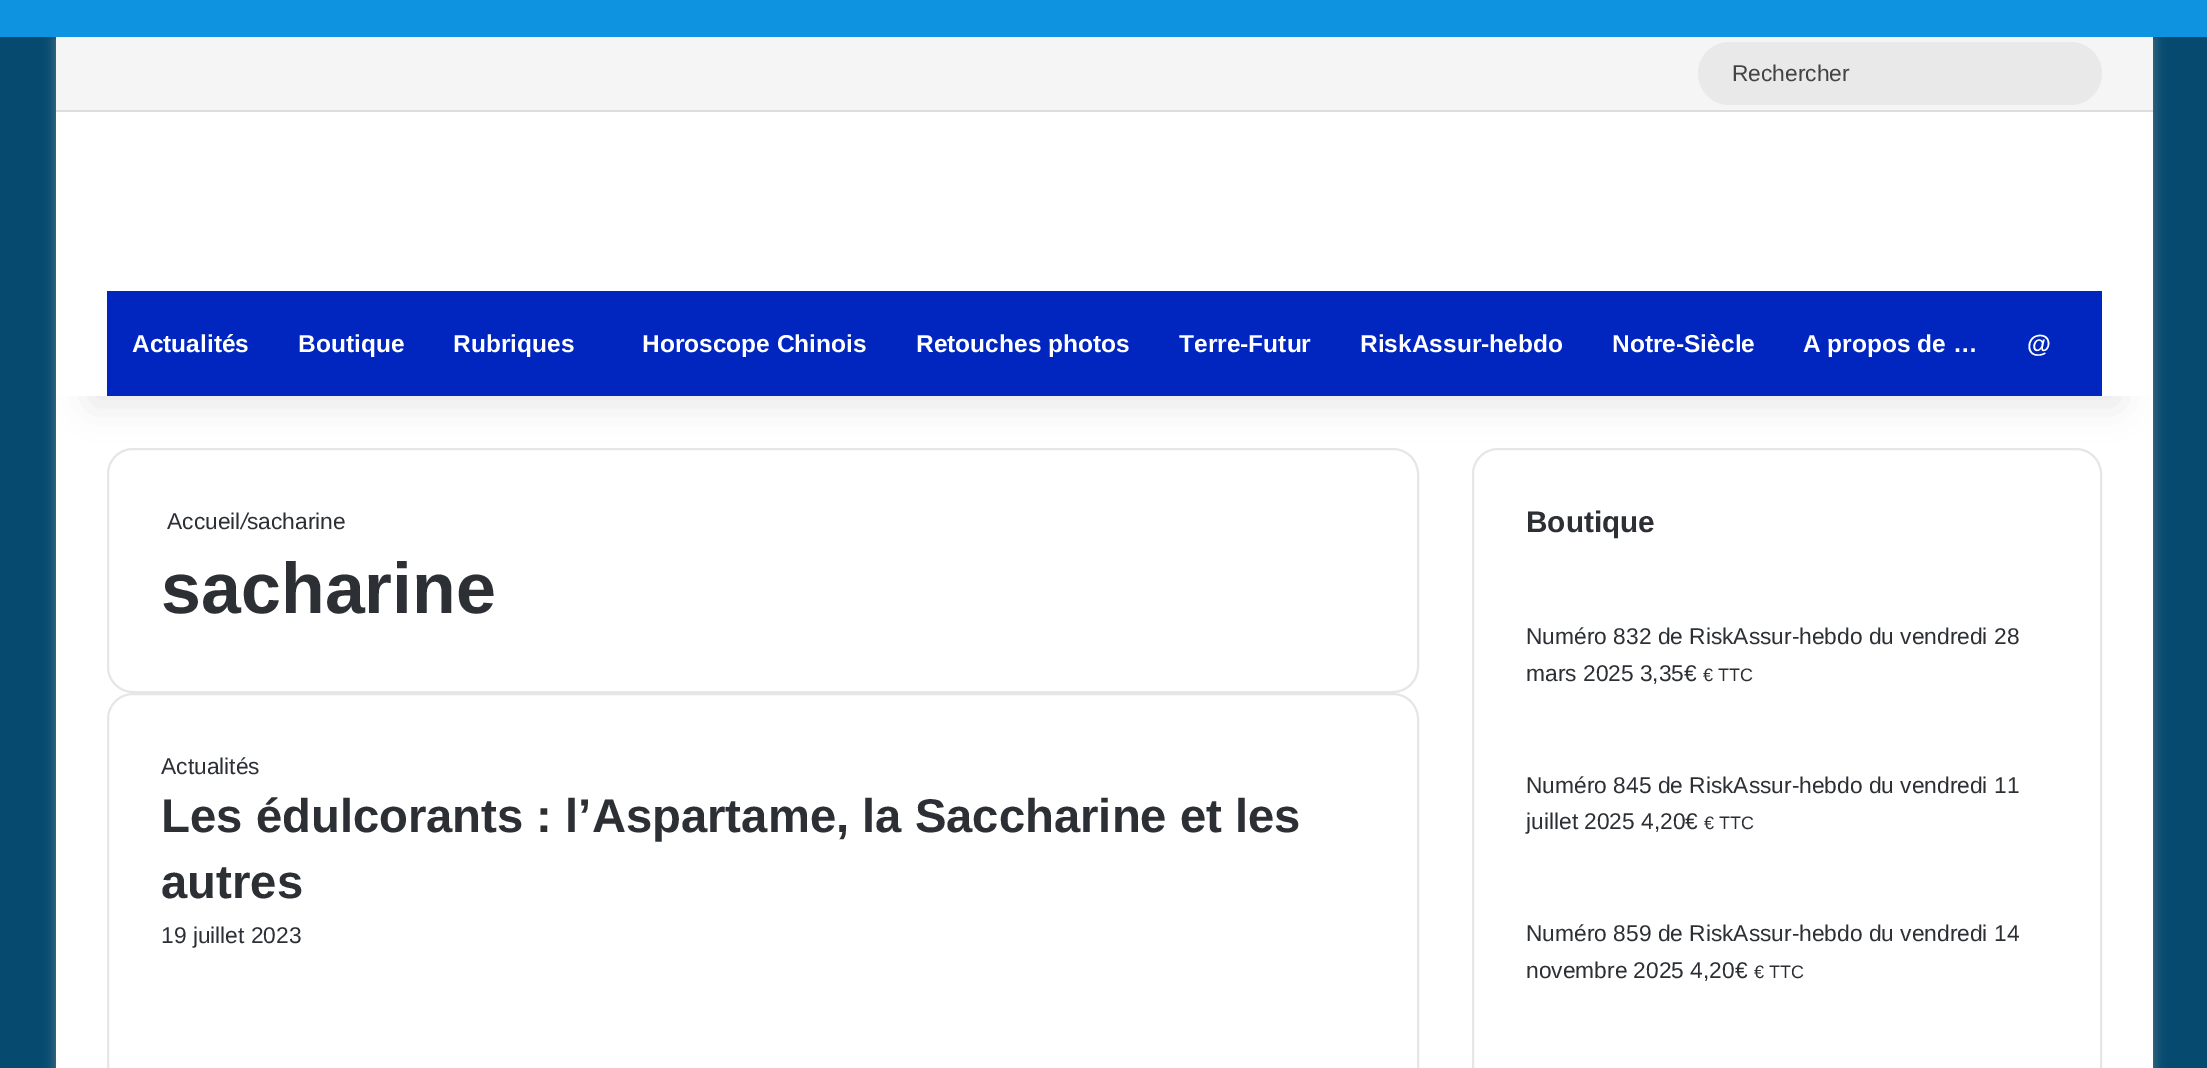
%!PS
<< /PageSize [2207 1068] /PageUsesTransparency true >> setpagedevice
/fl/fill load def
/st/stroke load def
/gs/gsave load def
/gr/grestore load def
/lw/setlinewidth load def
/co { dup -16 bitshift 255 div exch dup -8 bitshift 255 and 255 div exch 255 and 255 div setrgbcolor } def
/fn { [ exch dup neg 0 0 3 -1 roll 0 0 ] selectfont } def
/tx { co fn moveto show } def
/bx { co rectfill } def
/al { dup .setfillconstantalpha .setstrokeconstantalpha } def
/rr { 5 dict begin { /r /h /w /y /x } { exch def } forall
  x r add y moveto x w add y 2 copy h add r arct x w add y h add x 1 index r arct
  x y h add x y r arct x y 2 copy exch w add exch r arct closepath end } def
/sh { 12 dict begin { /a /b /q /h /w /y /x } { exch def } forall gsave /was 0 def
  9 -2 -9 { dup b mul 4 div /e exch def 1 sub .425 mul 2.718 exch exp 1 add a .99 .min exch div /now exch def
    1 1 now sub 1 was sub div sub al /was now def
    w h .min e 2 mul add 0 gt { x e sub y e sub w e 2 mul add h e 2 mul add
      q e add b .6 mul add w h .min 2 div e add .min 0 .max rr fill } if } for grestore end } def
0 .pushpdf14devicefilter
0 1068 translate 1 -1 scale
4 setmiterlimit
0 0 2207 1068 16#0D93E0 bx
0 37 2207 1031 16#064A70 bx
gs
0 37 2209 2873 rectclip
16#ABABAB co
56 39 2097 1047 0 6 .5 sh
gr
56 396 2097 672 16#FFFFFF bx
16#E6E6E6 co
2 lw
108 449 1310 243 25 rr st
1473 449 628 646 25 rr st
16#000000 co
91 116 2027 288 0 17.5 .1 sh
56 112 2097 284 16#FFFFFF bx
56 37 2097 73 16#F5F5F5 bx
56 110 2097 2 16#DDDDDD bx
16#E9E9E9 co
1698 42 404 63 31.5 rr fl
107 291 1995 105 16#0026BF bx
16#E6E6E6 co
108 694 1310 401 25 rr st
(Rechercher) 1732 81 /LiberationSans-Regular 22.75 16#444444 tx
(Actualités) 132 352 /LiberationSans-Bold 24.5 16#FFFFFF tx
(Boutique) 298 352 /LiberationSans-Bold 24.5 16#FFFFFF tx
(Rubriques) 453 352 /LiberationSans-Bold 24.5 16#FFFFFF tx
(Horoscope Chinois) 642 352 /LiberationSans-Bold 24.5 16#FFFFFF tx
(Retouches photos) 916 352 /LiberationSans-Bold 24.5 16#FFFFFF tx
(Terre-Futur) 1179 352 /LiberationSans-Bold 24.5 16#FFFFFF tx
(RiskAssur-hebdo) 1360 352 /LiberationSans-Bold 24.5 16#FFFFFF tx
(Notre-Siècle) 1612 352 /LiberationSans-Bold 24.5 16#FFFFFF tx
(A propos de …) 1803 352 /LiberationSans-Bold 24.5 16#FFFFFF tx
(@) 2027 352 /LiberationSans-Bold 24.5 16#FFFFFF tx
(Accueil) 167 529 /LiberationSans-Regular 22.75 16#2C2F34 tx
(/) 241 529 /LiberationSans-Italic 22.75 16#2C2F34 tx
(sacharine) 247 529 /LiberationSans-Regular 22.75 16#2C2F34 tx
(sacharine) 161 613 /LiberationSans-Bold 71.75 16#2C2F34 tx
(Actualités) 161 774 /LiberationSans-Regular 22.75 16#2C2F34 tx
(Les édulcorants : l’Aspartame, la Saccharine et les) 161 832 /LiberationSans-Bold 47.25 16#2C2F34 tx
(autres) 161 898 /LiberationSans-Bold 47.25 16#2C2F34 tx
(19 juillet 2023) 161 943 /LiberationSans-Regular 22.75 16#2C2F34 tx
(Boutique) 1526 532 /LiberationSans-Bold 29.75 16#2C2F34 tx
(Numéro 832 de RiskAssur-hebdo du vendredi 28) 1526 644 /LiberationSans-Regular 22.75 16#2C2F34 tx
(mars 2025 3,35€) 1526 681 /LiberationSans-Regular 22.75 16#2C2F34 tx
(€ TTC) 1703 681 /LiberationSans-Regular 18 16#2C2F34 tx
(Numéro 845 de RiskAssur-hebdo du vendredi 11) 1526 793 /LiberationSans-Regular 22.75 16#2C2F34 tx
(juillet 2025 4,20€) 1526 829 /LiberationSans-Regular 22.75 16#2C2F34 tx
(€ TTC) 1704 829 /LiberationSans-Regular 18 16#2C2F34 tx
(Numéro 859 de RiskAssur-hebdo du vendredi 14) 1526 941 /LiberationSans-Regular 22.75 16#2C2F34 tx
(novembre 2025 4,20€) 1526 978 /LiberationSans-Regular 22.75 16#2C2F34 tx
(€ TTC) 1754 978 /LiberationSans-Regular 18 16#2C2F34 tx
.poppdf14devicefilter showpage
